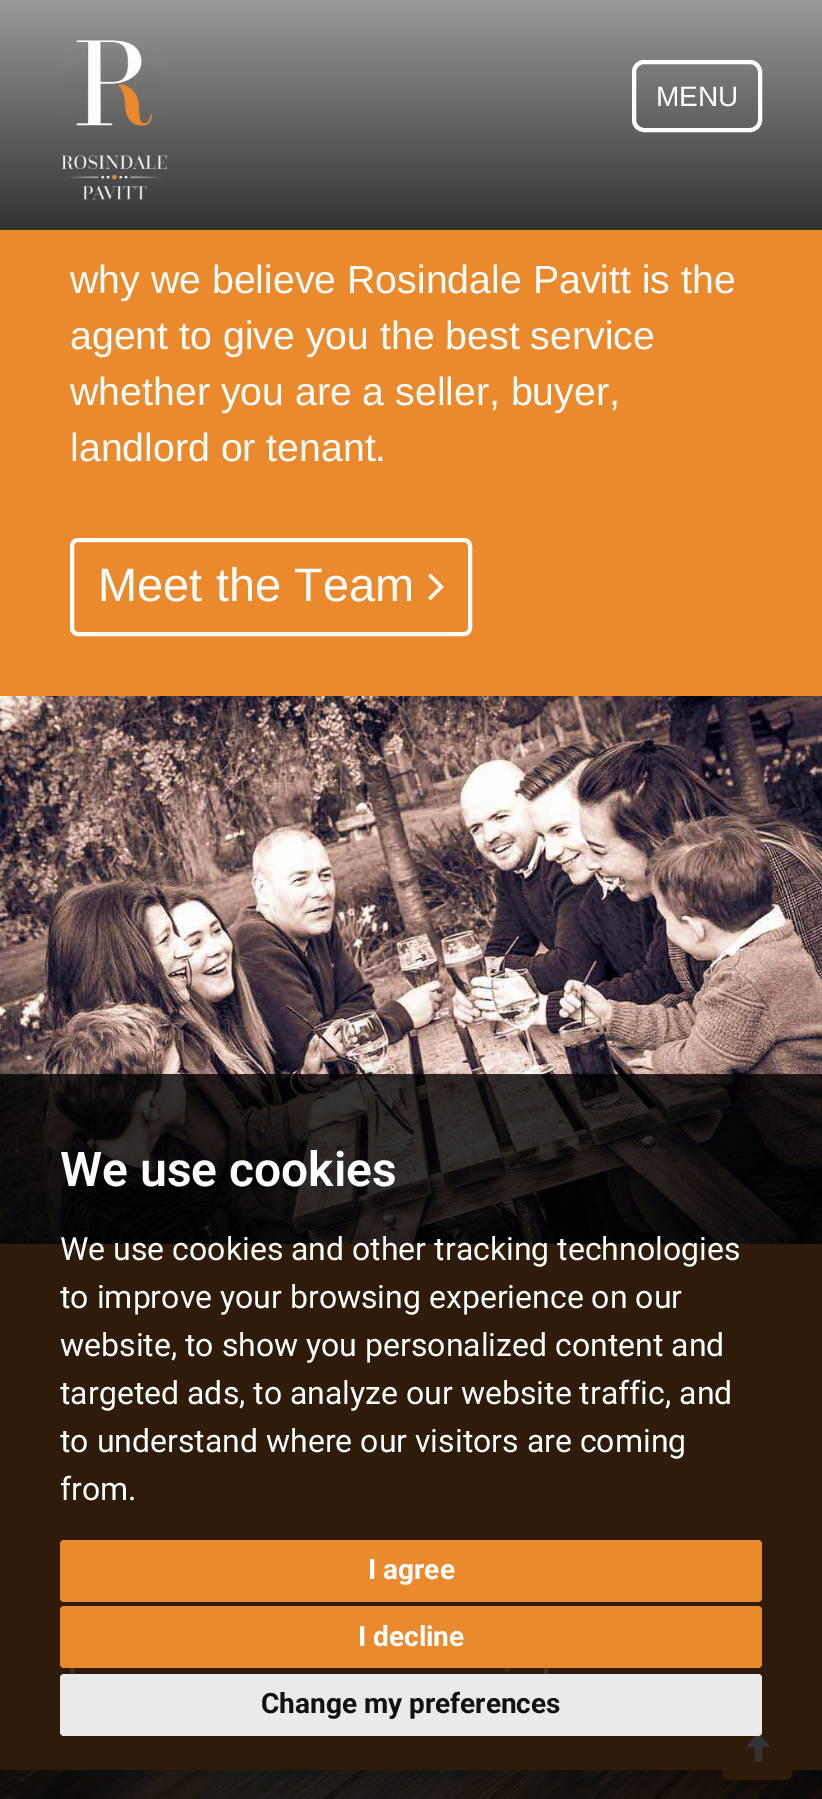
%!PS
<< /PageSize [822 1799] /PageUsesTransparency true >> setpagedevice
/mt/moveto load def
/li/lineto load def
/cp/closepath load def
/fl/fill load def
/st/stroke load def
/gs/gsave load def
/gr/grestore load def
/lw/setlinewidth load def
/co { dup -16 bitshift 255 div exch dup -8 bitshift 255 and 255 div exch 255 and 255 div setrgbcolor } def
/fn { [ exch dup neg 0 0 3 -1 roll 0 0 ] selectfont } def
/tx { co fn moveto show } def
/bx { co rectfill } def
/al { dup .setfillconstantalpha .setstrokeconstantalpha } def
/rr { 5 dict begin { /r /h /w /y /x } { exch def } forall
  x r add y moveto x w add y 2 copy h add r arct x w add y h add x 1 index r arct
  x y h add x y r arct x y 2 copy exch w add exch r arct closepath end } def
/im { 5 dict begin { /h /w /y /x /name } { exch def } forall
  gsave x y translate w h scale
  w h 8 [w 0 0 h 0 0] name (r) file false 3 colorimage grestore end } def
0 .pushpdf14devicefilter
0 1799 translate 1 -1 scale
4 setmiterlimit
0 0 822 1799 16#EB892D bx
gs 0 0 mt 822 0 li 822 230 li 0 230 li cp clip newpath
<< /ShadingType 2 /ColorSpace /DeviceRGB /Coords [411 0 411 230] /Extend [true true] /Function << /FunctionType 2 /Domain [0 1] /C0 [.6 .6 .6] /C1 [.2 .2 .2] /N 1 >> >> shfill gr
(media/1.raw) 61 40 106 160 im
16#FFFFFF co
4 lw
634 62 126 68 10 rr st
72 540 398 94 6 rr st
(media/2.raw) 428 573 16 27 im
(media/3.raw) 0 696 822 548 im
72 1612 474 96 rectstroke
(media/4.raw) 504 1668 7 4 im
(media/5.raw) 0 1770 822 29 im
16#EB892D co
722 1718 70 62 6 rr fl
(media/6.raw) 746 1734 24 28 im
0.8 al
0 1074 822 725 16#000000 bx
1 al
16#EB892D co
60 1540 702 62 4 rr fl
60 1606 702 62 4 rr fl
16#EAEAEA co
60 1674 702 62 4 rr fl
(MENU) 656 106 /Arimo-Regular 28 16#FFFFFF tx
(why we believe Rosindale Pavitt is the) 70 293 /Arimo-Regular 39.25 16#FFFFFF tx
(agent to give you the best service) 70 349 /Arimo-Regular 39.25 16#FFFFFF tx
(whether you are a seller, buyer,) 70 405 /Arimo-Regular 39.25 16#FFFFFF tx
(landlord or tenant.) 70 461 /Arimo-Regular 39.25 16#FFFFFF tx
(Meet the Team) 98 601 /Arimo-Regular 47 16#FFFFFF tx
(We use cookies) 60 1186 /Roboto-SemiBold 48 16#FFFFFF tx
(We use cookies and other tracking technologies) 60 1260 /Roboto-Regular 32 16#FFFFFF tx
(to improve your browsing experience on our) 60 1308 /Roboto-Regular 32 16#FFFFFF tx
(website, to show you personalized content and) 60 1356 /Roboto-Regular 32 16#FFFFFF tx
(targeted ads, to analyze our website traffic, and) 60 1404 /Roboto-Regular 32 16#FFFFFF tx
(to understand where our visitors are coming) 60 1452 /Roboto-Regular 32 16#FFFFFF tx
(from.) 60 1500 /Roboto-Regular 32 16#FFFFFF tx
(I agree) 368 1579 /Roboto-Bold 28 16#FFFFFF tx
(I decline) 358 1646 /Roboto-Bold 28 16#FFFFFF tx
(Change my preferences) 261 1713 /Roboto-Bold 28 16#111111 tx
.poppdf14devicefilter showpage
